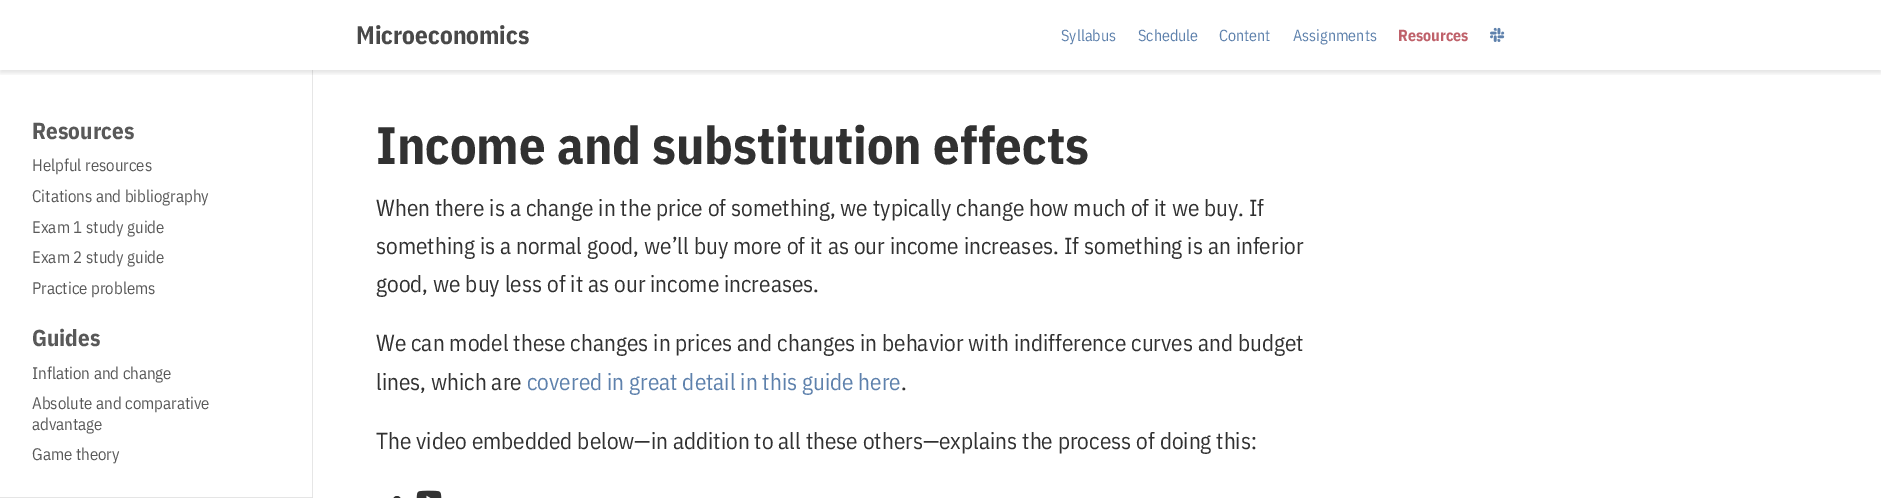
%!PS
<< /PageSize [1881 498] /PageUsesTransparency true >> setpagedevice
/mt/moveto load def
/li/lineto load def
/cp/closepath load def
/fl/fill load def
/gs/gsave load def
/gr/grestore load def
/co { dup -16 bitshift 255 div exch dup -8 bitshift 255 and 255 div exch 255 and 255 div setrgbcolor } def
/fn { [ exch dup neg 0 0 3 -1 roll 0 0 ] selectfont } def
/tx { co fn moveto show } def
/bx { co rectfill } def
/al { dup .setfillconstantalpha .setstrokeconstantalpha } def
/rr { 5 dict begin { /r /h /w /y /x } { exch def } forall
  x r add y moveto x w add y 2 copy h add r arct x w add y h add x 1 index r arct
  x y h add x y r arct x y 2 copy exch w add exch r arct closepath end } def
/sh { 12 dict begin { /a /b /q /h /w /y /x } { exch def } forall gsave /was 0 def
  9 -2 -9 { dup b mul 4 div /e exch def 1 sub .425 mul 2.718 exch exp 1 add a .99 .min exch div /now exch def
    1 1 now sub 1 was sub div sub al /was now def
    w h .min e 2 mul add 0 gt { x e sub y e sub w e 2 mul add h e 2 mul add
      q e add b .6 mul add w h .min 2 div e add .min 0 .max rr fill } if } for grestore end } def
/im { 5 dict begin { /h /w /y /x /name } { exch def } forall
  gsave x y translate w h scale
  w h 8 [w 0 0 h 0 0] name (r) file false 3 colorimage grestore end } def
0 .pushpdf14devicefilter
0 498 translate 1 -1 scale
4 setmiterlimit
0 0 1881 498 16#FFFFFF bx
16#E6E6E6 co
313 70 mt 313 498 li 312 497 li 312 70 li cp fl
gs
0 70 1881 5 rectclip
16#000000 co
0 3 1881 70 0 2.5 .11 sh
gr
(media/1.raw) 1490 27 15 15 im
0.1 al
16#000000 co
313 498 mt 0 498 li 0 497 li 312 497 li cp fl
1 al
(media/2.raw) 416 490 26 8 im
16#333333 co
393 496 8 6 4 rr fl
(Microeconomics) 356 44 /IBMPlexSansCondensed-Bold 25.25 16#494949 tx
(Syllabus) 1061 41 /IBMPlexSansCondensed-Regular 16 16#5E81AC tx
(Schedule) 1138 41 /IBMPlexSansCondensed-Regular 16 16#5E81AC tx
(Content) 1219 41 /IBMPlexSansCondensed-Regular 16 16#5E81AC tx
(Assignments) 1293 41 /IBMPlexSansCondensed-Regular 16 16#5E81AC tx
(Resources) 1398 41 /IBMPlexSansCondensed-Bold 16 16#BF616A tx
(Resources) 32 139 /IBMPlexSansCondensed-Bold 23.1 16#595959 tx
(Helpful resources) 32 171 /IBMPlexSansCondensed-Regular 16.75 16#595959 tx
(Citations and bibliography) 32 202 /IBMPlexSansCondensed-Regular 16.75 16#595959 tx
(Exam 1 study guide) 32 233 /IBMPlexSansCondensed-Regular 16.75 16#595959 tx
(Exam 2 study guide) 32 263 /IBMPlexSansCondensed-Regular 16.75 16#595959 tx
(Practice problems) 32 294 /IBMPlexSansCondensed-Regular 16.75 16#595959 tx
(Guides) 32 346 /IBMPlexSansCondensed-Bold 23.1 16#595959 tx
(Inflation and change) 32 379 /IBMPlexSansCondensed-Regular 16.75 16#595959 tx
(Absolute and comparative) 32 409 /IBMPlexSansCondensed-Regular 16.75 16#595959 tx
(advantage) 32 430 /IBMPlexSansCondensed-Regular 16.75 16#595959 tx
(Game theory) 32 460 /IBMPlexSansCondensed-Regular 16.75 16#595959 tx
(Income and substitution effects) 376 164 /IBMPlexSansCondensed-Bold 52.5 16#313131 tx
(When there is a change in the price of something, we typically change how much of it we buy. If) 376 216 /IBMPlexSansCondensed-Regular 23.1 16#313131 tx
(something is a normal good, we’ll buy more of it as our income increases. If something is an inferior) 376 254 /IBMPlexSansCondensed-Regular 23.1 16#313131 tx
(good, we buy less of it as our income increases.) 376 292 /IBMPlexSansCondensed-Regular 23.1 16#313131 tx
(We can model these changes in prices and changes in behavior with indifference curves and budget) 376 351 /IBMPlexSansCondensed-Regular 23.1 16#313131 tx
(lines, which are) 376 390 /IBMPlexSansCondensed-Regular 23.1 16#313131 tx
(covered in great detail in this guide here) 527 390 /IBMPlexSansCondensed-Regular 23.1 16#5E81AC tx
(.) 901 390 /IBMPlexSansCondensed-Regular 23.1 16#313131 tx
(The video embedded below—in addition to all these others—explains the process of doing this:) 376 449 /IBMPlexSansCondensed-Regular 23.1 16#313131 tx
.poppdf14devicefilter showpage
